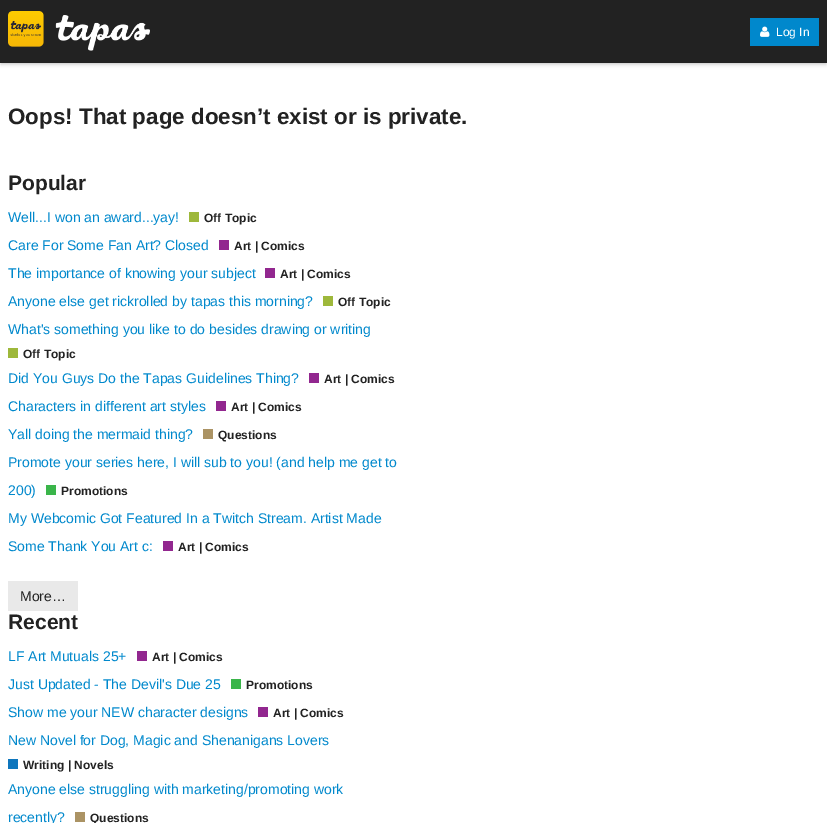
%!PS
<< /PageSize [827 823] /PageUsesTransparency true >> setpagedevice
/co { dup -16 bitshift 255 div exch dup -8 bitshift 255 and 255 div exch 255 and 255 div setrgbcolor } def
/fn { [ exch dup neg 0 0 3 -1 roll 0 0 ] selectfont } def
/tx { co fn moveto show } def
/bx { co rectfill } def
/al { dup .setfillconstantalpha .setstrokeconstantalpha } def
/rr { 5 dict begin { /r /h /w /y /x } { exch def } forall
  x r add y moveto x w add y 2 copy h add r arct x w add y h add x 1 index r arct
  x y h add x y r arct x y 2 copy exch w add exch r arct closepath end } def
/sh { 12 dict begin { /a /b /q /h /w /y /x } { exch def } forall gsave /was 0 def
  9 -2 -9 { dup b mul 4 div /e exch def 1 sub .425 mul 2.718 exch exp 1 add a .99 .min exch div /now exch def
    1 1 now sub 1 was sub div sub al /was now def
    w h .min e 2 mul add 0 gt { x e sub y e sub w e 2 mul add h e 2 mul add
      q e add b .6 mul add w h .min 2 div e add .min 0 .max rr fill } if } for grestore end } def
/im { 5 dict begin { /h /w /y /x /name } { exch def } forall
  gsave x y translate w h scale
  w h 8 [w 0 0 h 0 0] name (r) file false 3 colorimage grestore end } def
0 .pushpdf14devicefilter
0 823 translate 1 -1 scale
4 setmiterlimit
0 0 827 823 16#FFFFFF bx
16#000000 co
1 3 825 61 0 2 .25 sh
0 0 827 63 16#222222 bx
(media/1.raw) 8 11 142 40 im
750 18 69 28 16#0088CC bx
(media/2.raw) 760 26 10 11 im
189 212 10 10 16#9EB83B bx
219 240 10 10 16#92278F bx
265 268 10 10 16#92278F bx
323 296 10 10 16#9EB83B bx
8 348 10 10 16#9EB83B bx
309 373 10 10 16#92278F bx
216 401 10 10 16#92278F bx
203 429 10 10 16#AB9364 bx
46 485 10 10 16#3AB54A bx
163 541 10 10 16#92278F bx
8 581 70 30 16#E9E9E9 bx
137 651 10 10 16#92278F bx
231 679 10 10 16#3AB54A bx
258 707 10 10 16#92278F bx
8 759 10 10 16#0E76BD bx
75 812 10 10 16#AB9364 bx
(Log In) 776 36 /LiberationSans-Regular 12 16#FFFFFF tx
(Oops! That page doesn’t exist or is private.) 8 124 /LiberationSans-Bold 22.4 16#222222 tx
(Popular) 8 190 /LiberationSans-Bold 21 16#222222 tx
(Well...I won an award...yay!) 8 222 /LiberationSans-Regular 14 16#0088CC tx
(Off Topic) 204 222 /LiberationSans-Bold 12 16#222222 tx
(Care For Some Fan Art? Closed) 8 250 /LiberationSans-Regular 14 16#0088CC tx
(Art | Comics) 234 250 /LiberationSans-Bold 12 16#222222 tx
(The importance of knowing your subject) 8 278 /LiberationSans-Regular 14 16#0088CC tx
(Art | Comics) 280 278 /LiberationSans-Bold 12 16#222222 tx
(Anyone else get rickrolled by tapas this morning?) 8 306 /LiberationSans-Regular 14 16#0088CC tx
(Off Topic) 338 306 /LiberationSans-Bold 12 16#222222 tx
(What's something you like to do besides drawing or writing) 8 334 /LiberationSans-Regular 14 16#0088CC tx
(Off Topic) 23 358 /LiberationSans-Bold 12 16#222222 tx
(Did You Guys Do the Tapas Guidelines Thing?) 8 383 /LiberationSans-Regular 14 16#0088CC tx
(Art | Comics) 324 383 /LiberationSans-Bold 12 16#222222 tx
(Characters in different art styles) 8 411 /LiberationSans-Regular 14 16#0088CC tx
(Art | Comics) 231 411 /LiberationSans-Bold 12 16#222222 tx
(Yall doing the mermaid thing?) 8 439 /LiberationSans-Regular 14 16#0088CC tx
(Questions) 218 439 /LiberationSans-Bold 12 16#222222 tx
(Promote your series here, I will sub to you! \(and help me get to) 8 467 /LiberationSans-Regular 14 16#0088CC tx
(200\)) 8 495 /LiberationSans-Regular 14 16#0088CC tx
(Promotions) 61 495 /LiberationSans-Bold 12 16#222222 tx
(My Webcomic Got Featured In a Twitch Stream. Artist Made) 8 523 /LiberationSans-Regular 14 16#0088CC tx
(Some Thank You Art c:) 8 551 /LiberationSans-Regular 14 16#0088CC tx
(Art | Comics) 178 551 /LiberationSans-Bold 12 16#222222 tx
(More…) 20 601 /LiberationSans-Regular 14 16#222222 tx
(Recent) 8 629 /LiberationSans-Bold 21 16#222222 tx
(LF Art Mutuals 25+) 8 661 /LiberationSans-Regular 14 16#0088CC tx
(Art | Comics) 152 661 /LiberationSans-Bold 12 16#222222 tx
(Just Updated - The Devil's Due 25) 8 689 /LiberationSans-Regular 14 16#0088CC tx
(Promotions) 246 689 /LiberationSans-Bold 12 16#222222 tx
(Show me your NEW character designs) 8 717 /LiberationSans-Regular 14 16#0088CC tx
(Art | Comics) 273 717 /LiberationSans-Bold 12 16#222222 tx
(New Novel for Dog, Magic and Shenanigans Lovers) 8 745 /LiberationSans-Regular 14 16#0088CC tx
(Writing | Novels) 23 769 /LiberationSans-Bold 12 16#222222 tx
(Anyone else struggling with marketing/promoting work) 8 794 /LiberationSans-Regular 14 16#0088CC tx
(recently?) 8 822 /LiberationSans-Regular 14 16#0088CC tx
(Questions) 90 822 /LiberationSans-Bold 12 16#222222 tx
.poppdf14devicefilter showpage
